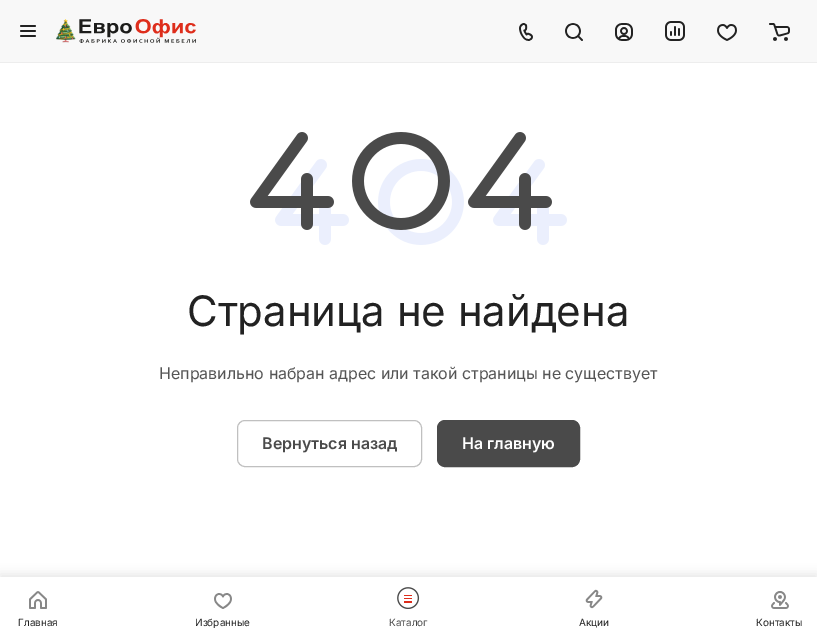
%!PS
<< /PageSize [817 638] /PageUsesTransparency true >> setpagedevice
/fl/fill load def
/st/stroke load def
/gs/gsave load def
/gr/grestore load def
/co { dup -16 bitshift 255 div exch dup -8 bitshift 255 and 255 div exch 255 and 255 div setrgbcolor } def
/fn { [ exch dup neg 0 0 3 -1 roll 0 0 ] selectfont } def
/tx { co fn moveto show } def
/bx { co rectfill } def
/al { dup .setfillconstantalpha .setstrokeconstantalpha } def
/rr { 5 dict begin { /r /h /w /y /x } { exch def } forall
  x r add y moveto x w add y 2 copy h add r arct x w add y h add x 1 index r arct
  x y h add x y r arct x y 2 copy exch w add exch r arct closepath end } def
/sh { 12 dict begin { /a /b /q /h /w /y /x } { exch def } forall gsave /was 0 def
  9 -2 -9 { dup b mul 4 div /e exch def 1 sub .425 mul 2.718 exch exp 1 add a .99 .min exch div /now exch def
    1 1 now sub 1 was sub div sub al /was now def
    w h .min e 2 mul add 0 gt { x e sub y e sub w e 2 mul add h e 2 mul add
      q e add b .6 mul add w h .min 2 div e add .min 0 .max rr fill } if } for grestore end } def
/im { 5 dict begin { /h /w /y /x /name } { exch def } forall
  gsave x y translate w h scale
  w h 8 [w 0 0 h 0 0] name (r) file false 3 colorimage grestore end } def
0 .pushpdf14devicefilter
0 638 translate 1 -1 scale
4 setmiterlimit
0 0 817 638 16#FFFFFF bx
0 62 817 1 16#EDEDED bx
0 0 817 62 16#F8F8F8 bx
(media/1.raw) 20 25 16 12 im
(media/2.raw) 56 19 140 24 im
(media/3.raw) 519 23 14 18 im
(media/4.raw) 565 23 18 18 im
(media/5.raw) 615 23 18 18 im
(media/6.raw) 665 21 20 20 im
(media/7.raw) 717 24 20 17 im
(media/8.raw) 769 23 21 18 im
(media/9.raw) 250 132 317 113 im
16#C0C0C0 co
237.5 420.5 184 46 7.5 rr st
16#4A4A4A co
437.5 420.5 142 46 7.5 rr gs fl gr
st
16#000000 co
0 574 817 61 0 5 .1 sh
0 577 817 61 16#FFFFFF bx
(media/10.raw) 29 591 18 18 im
(media/11.raw) 214 593 18 16 im
(media/12.raw) 397 587 23 22 im
(media/13.raw) 585 589 18 20 im
(media/14.raw) 771 591 18 18 im
(Страница не найдена) 187 326 /Inter-Regular 42 16#222222 tx
(Неправильно набран адрес или такой страницы не существует) 159 379 /Inter-Regular 16 16#555555 tx
(Вернуться назад) 262 449 /Inter-SemiBold 16 16#4A4A4A tx
(На главную) 462 449 /Inter-SemiBold 16 16#FFFFFF tx
(Главная) 18 626 /Inter-Regular 10 16#222222 tx
(Избранные) 195 626 /Inter-Regular 10 16#222222 tx
(Каталог) 389 626 /Inter-Regular 10 16#4A4A4A tx
(Акции) 579 626 /Inter-Regular 10 16#222222 tx
(Контакты) 756 626 /Inter-Regular 10 16#222222 tx
.poppdf14devicefilter showpage
